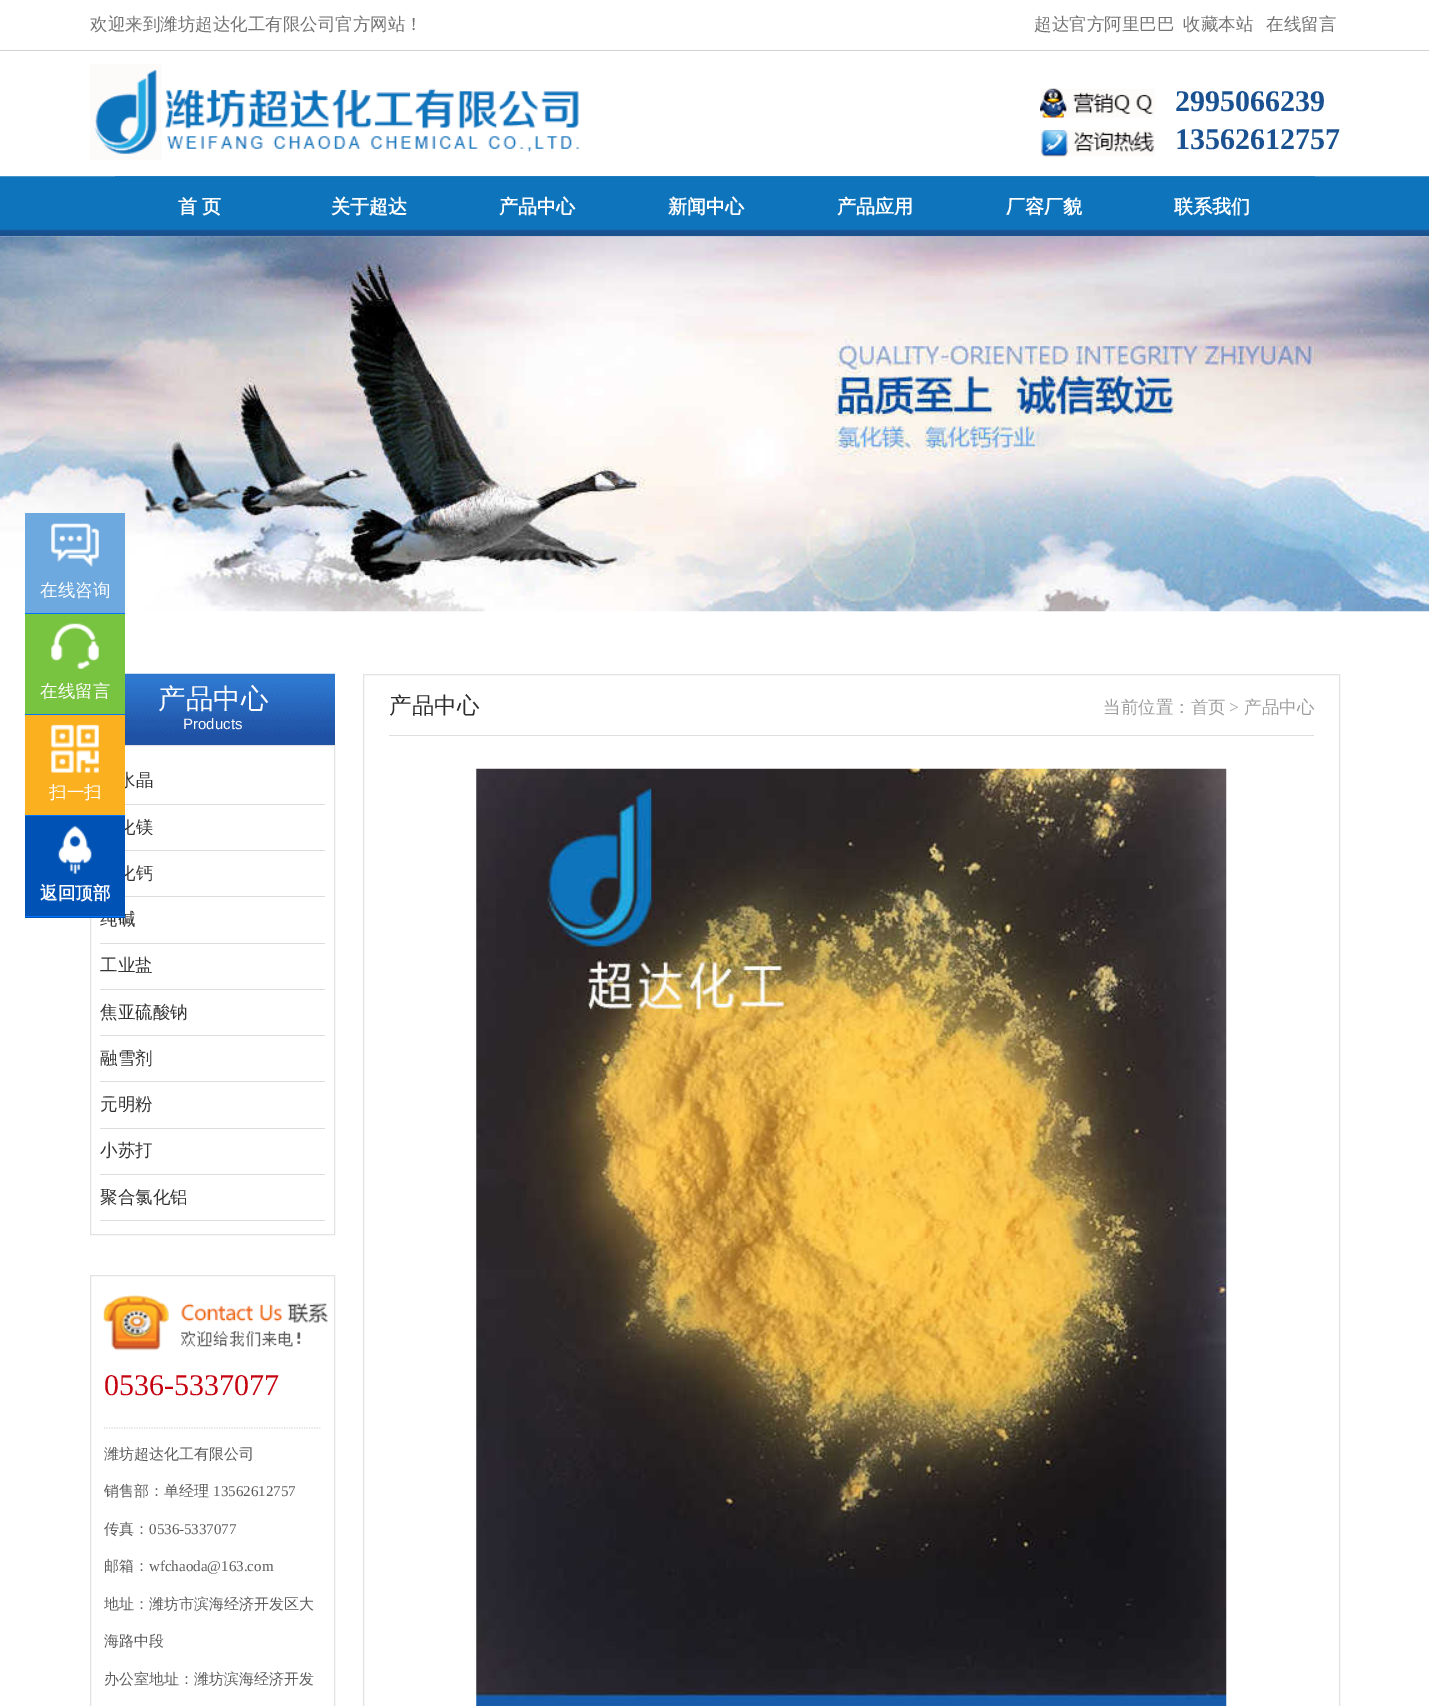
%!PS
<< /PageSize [1429 1706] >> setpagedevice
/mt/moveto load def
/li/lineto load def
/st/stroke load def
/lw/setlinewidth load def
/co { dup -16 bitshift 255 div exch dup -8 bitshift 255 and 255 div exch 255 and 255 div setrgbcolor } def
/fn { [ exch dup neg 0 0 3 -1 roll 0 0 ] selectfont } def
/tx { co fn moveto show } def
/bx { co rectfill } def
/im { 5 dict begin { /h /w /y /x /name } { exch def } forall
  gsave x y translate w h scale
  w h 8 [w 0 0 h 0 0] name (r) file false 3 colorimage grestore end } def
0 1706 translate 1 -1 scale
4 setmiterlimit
0 0 1429 1706 16#FFFFFF bx
0 50 1429 1 16#D3D1D1 bx
(media/1.raw) 90 64 489 96 im
(media/2.raw) 1040 88 115 30 im
(media/3.raw) 1040 130 115 27 im
(media/4.raw) 0 176 1429 61 im
(media/5.raw) 115 176 1200 61 im
(media/6.raw) 0 236 1429 376 im
25 513 100 100 16#6DA9DE bx
(media/7.raw) 51 523 48 44 im
25 613 100 1 16#0074FF bx
25 614 100 100 16#78C340 bx
(media/8.raw) 51 623 48 46 im
25 714 100 1 16#0074FF bx
16#E4E3E3 co
90.5 745.5 244 489 rectstroke
25 815 100 1 16#0074FF bx
(media/11.raw) 125 673 210 72 im
125 804 200 1 16#DDDDDD bx
125 850 200 1 16#DDDDDD bx
125 896 200 1 16#DDDDDD bx
100 943 225 1 16#DDDDDD bx
100 989 225 1 16#DDDDDD bx
100 1035 225 1 16#DDDDDD bx
100 1081 225 1 16#DDDDDD bx
100 1128 225 1 16#DDDDDD bx
100 1174 225 1 16#DDDDDD bx
100 1220 225 1 16#DDDDDD bx
16#E4E3E3 co
90.5 1275.5 244 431 rectstroke
16#DDDDDD co
1.2 lw
[1.25 1.25] 0 setdash
104 1428 mt 321 1428 li st
(media/12.raw) 103 1295 225 56 im
16#E4E3E3 co
1 lw
[] 0 setdash
363.5 674.5 976 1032 rectstroke
389 735 925 1 16#DFDFDF bx
(media/13.raw) 476 768 751 938 im
(欢迎来到潍坊超达化工有限公司官方网站！) 90 30 /WenQuanYiZenHei-Medium 17.5 16#737373 tx
(超达官方阿里巴巴) 1034 30 /WenQuanYiZenHei-Medium 17.5 16#737373 tx
(收藏本站) 1183 30 /WenQuanYiZenHei-Medium 17.5 16#737373 tx
(在线留言) 1266 30 /WenQuanYiZenHei-Medium 17.5 16#737373 tx
(2995066239) 1175 111 /LiberationSerif-Bold 30 16#1A5191 tx
(13562612757) 1175 149 /LiberationSerif-Bold 30 16#1A5191 tx
/WenQuanYiZenHei-Bold 19 fn
16#FEFEFE co
178 213 mt -1 0 32 (首 页) widthshow
(关于超达) 331 213 /WenQuanYiZenHei-Bold 19 16#FEFEFE tx
(产品中心) 499 213 /WenQuanYiZenHei-Bold 19 16#FEFEFE tx
(新闻中心) 668 213 /WenQuanYiZenHei-Bold 19 16#FEFEFE tx
(产品应用) 837 213 /WenQuanYiZenHei-Bold 19 16#FEFEFE tx
(厂容厂貌) 1006 213 /WenQuanYiZenHei-Bold 19 16#FEFEFE tx
(联系我们) 1174 213 /WenQuanYiZenHei-Bold 19 16#FEFEFE tx
(在线咨询) 40 596 /WenQuanYiZenHei-Medium 17.5 16#FEFEFE tx
(在线留言) 40 697 /WenQuanYiZenHei-Medium 17.5 16#FEFEFE tx
(产品中心) 158 708 /WenQuanYiZenHei-Medium 27.5 16#FEFEFE tx
(Products) 183 729 /LiberationSans-Regular 15 16#FEFEFE tx
(水晶) 118 786 /WenQuanYiZenHei-Medium 17.5 16#333333 tx
25 715 100 100 16#FBB01F bx
(扫一扫) 49 798 /WenQuanYiZenHei-Medium 17.5 16#FEFEFE tx
(media/9.raw) 51 724 48 49 im
(化镁) 118 833 /WenQuanYiZenHei-Medium 17.5 16#333333 tx
(化钙) 118 879 /WenQuanYiZenHei-Medium 17.5 16#333333 tx
(纯碱) 100 925 /WenQuanYiZenHei-Medium 17.5 16#333333 tx
25 816 100 102 16#0052B5 bx
(返回顶部) 40 899 /WenQuanYiZenHei-Bold 17.5 16#FEFEFE tx
25 916 100 1 16#0074FF bx
(media/10.raw) 58 826 34 48 im
(工业盐) 100 971 /WenQuanYiZenHei-Medium 17.5 16#333333 tx
(焦亚硫酸钠) 100 1018 /WenQuanYiZenHei-Medium 17.5 16#333333 tx
(融雪剂) 100 1064 /WenQuanYiZenHei-Medium 17.5 16#333333 tx
(元明粉) 100 1110 /WenQuanYiZenHei-Medium 17.5 16#333333 tx
(小苏打) 100 1156 /WenQuanYiZenHei-Medium 17.5 16#333333 tx
(聚合氯化铝) 100 1203 /WenQuanYiZenHei-Medium 17.5 16#333333 tx
(0536-5337077) 104 1395 /LiberationSerif-Regular 30 16#C60210 tx
(潍坊超达化工有限公司) 104 1459 /WenQuanYiZenHei-Medium 15 16#5D5C5C tx
(销售部：单经理) 104 1496 /WenQuanYiZenHei-Medium 15 16#5D5C5C tx
(13562612757) 213 1496 /LiberationSerif-Regular 15 16#5D5C5C tx
(传真：) 104 1534 /WenQuanYiZenHei-Medium 15 16#5D5C5C tx
(0536-5337077) 149 1534 /LiberationSerif-Regular 15 16#5D5C5C tx
(邮箱：) 104 1571 /WenQuanYiZenHei-Medium 15 16#5D5C5C tx
(wfchaoda@163.com) 149 1571 /LiberationSerif-Regular 15 16#5D5C5C tx
(地址：潍坊市滨海经济开发区大) 104 1609 /WenQuanYiZenHei-Medium 15 16#5D5C5C tx
(海路中段) 104 1646 /WenQuanYiZenHei-Medium 15 16#5D5C5C tx
(办公室地址：潍坊滨海经济开发) 104 1684 /WenQuanYiZenHei-Medium 15 16#5D5C5C tx
(产品中心) 389 713 /WenQuanYiZenHei-Medium 22.5 16#2D2D2D tx
(当前位置：首页) 1103 713 /WenQuanYiZenHei-Medium 17.5 16#9D9D9D tx
(>) 1229 713 /LiberationSerif-Regular 17.5 16#9D9D9D tx
(产品中心) 1244 713 /WenQuanYiZenHei-Medium 17.5 16#9D9D9D tx
showpage
